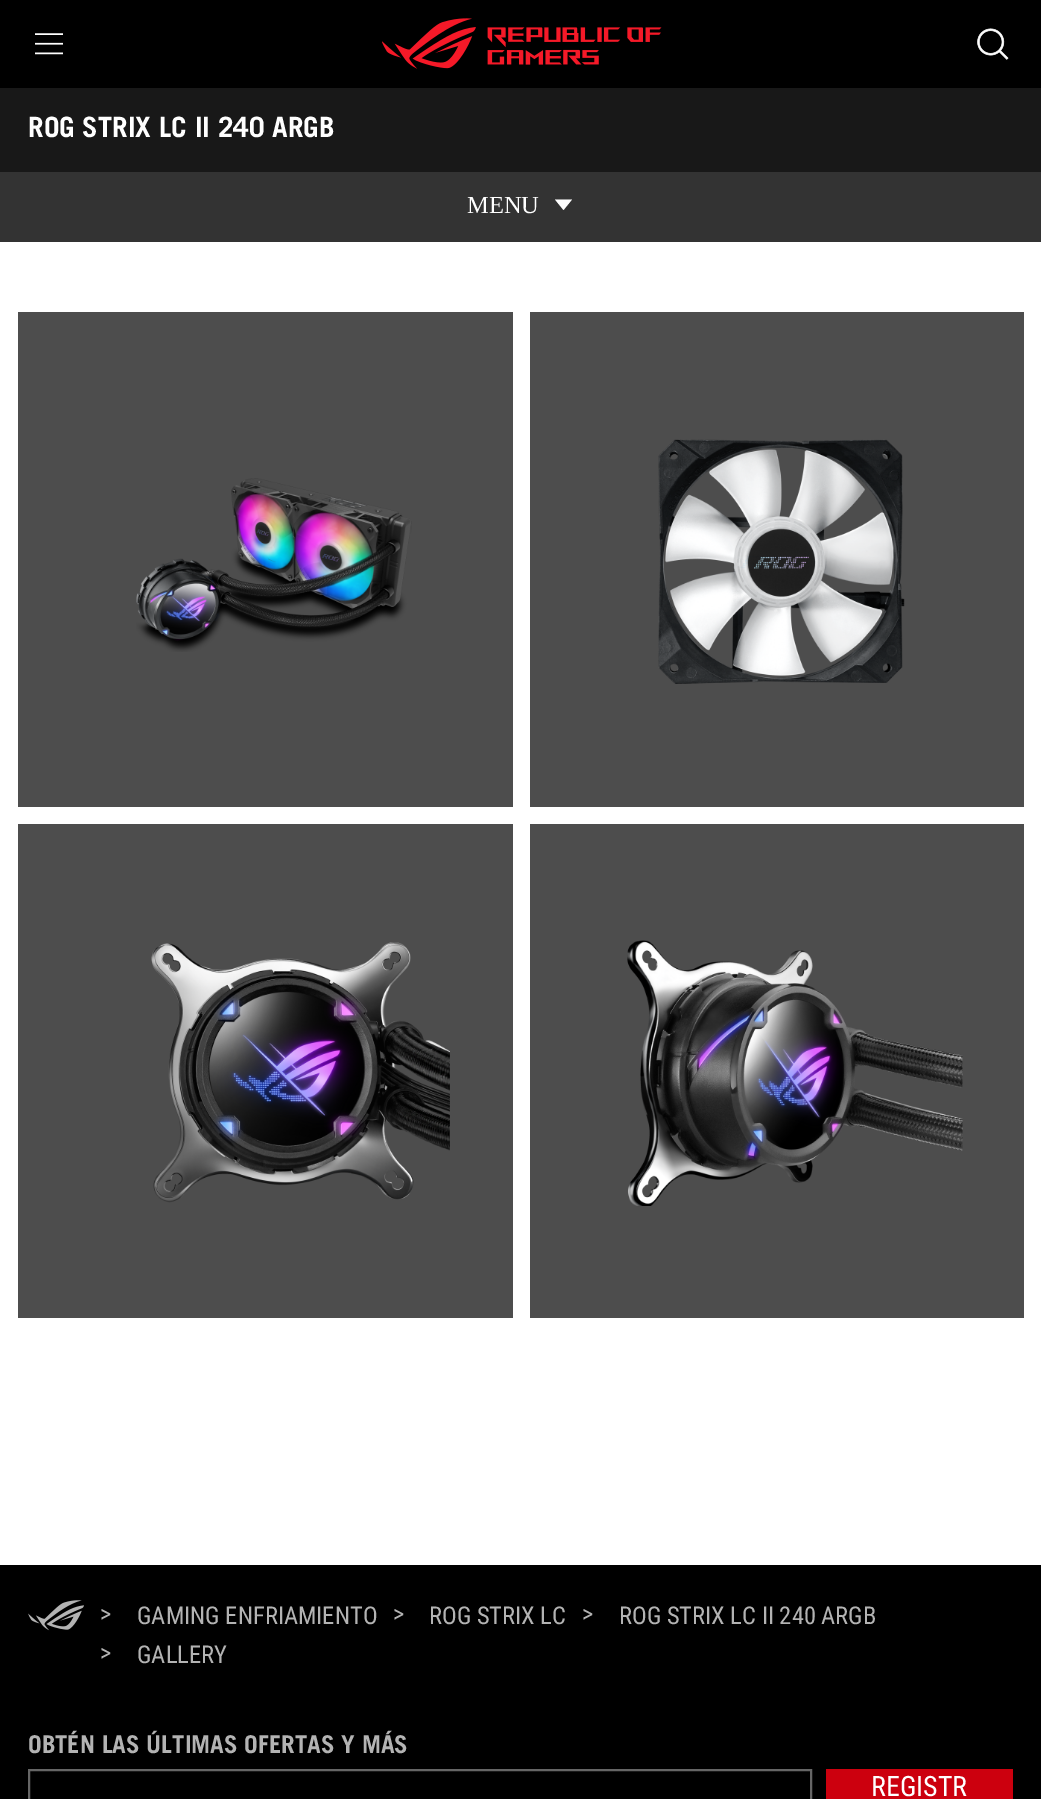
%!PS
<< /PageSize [1041 1799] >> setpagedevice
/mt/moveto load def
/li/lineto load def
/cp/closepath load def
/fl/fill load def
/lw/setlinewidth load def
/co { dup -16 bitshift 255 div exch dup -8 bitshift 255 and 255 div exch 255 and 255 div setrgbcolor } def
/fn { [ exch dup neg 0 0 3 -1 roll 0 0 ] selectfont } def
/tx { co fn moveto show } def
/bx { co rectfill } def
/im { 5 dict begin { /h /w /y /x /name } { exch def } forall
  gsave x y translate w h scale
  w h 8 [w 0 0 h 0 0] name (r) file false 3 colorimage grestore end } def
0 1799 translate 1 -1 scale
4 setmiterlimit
0 0 1041 1799 16#FFFFFF bx
0 0 1041 88 16#000000 bx
(media/1.raw) 35 33 28 22 im
(media/2.raw) 382 18 280 51 im
(media/3.raw) 977 28 32 32 im
0 88 1041 84 16#181818 bx
0 172 1041 70 16#333333 bx
16#FFFFFF co
555 199.5 mt 563.5 210 li 572 199.5 li cp fl
18 312 495 495 16#4D4D4D bx
(media/4.raw) 136 478 276 174 im
530 312 494 495 16#4D4D4D bx
(media/5.raw) 658 439 247 245 im
18 824 495 494 16#4D4D4D bx
(media/6.raw) 151 942 299 261 im
530 824 494 494 16#4D4D4D bx
(media/7.raw) 627 940 336 266 im
0 1565 1041 234 16#000000 bx
(media/8.raw) 28 1600 56 31 im
16#666666 co
2 lw
29 1770 782 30 rectstroke
826 1769 187 30 16#CC000E bx
(ROG STRIX LC II 240 ARGB) 28 137 /TradeGothic-Bold 28 16#FFFFFF tx
(MENU) 467 213 /LiberationSerif-Regular 24.5 16#FFFFFF tx
(>) 100 1622 /RobotoCondensed-Regular 24.5 16#B3B3B3 tx
(GAMING ENFRIAMIENTO) 137 1624 /RobotoCondensed-Regular 24.5 16#B3B3B3 tx
(>) 393 1622 /RobotoCondensed-Regular 24.5 16#B3B3B3 tx
(ROG STRIX LC) 429 1624 /RobotoCondensed-Regular 24.5 16#B3B3B3 tx
(>) 582 1622 /RobotoCondensed-Regular 24.5 16#B3B3B3 tx
(ROG STRIX LC II 240 ARGB) 619 1624 /RobotoCondensed-Regular 24.5 16#B3B3B3 tx
(>) 100 1661 /RobotoCondensed-Regular 24.5 16#B3B3B3 tx
(GALLERY) 137 1663 /RobotoCondensed-Regular 24.5 16#B3B3B3 tx
(OBTÉN LAS ÚLTIMAS OFERTAS Y MÁS) 28 1753 /TradeGothic-Bold 24.5 16#B3B3B3 tx
(REGISTR) 871 1796 /RobotoCondensed-Regular 28 16#FFFFFF tx
showpage
